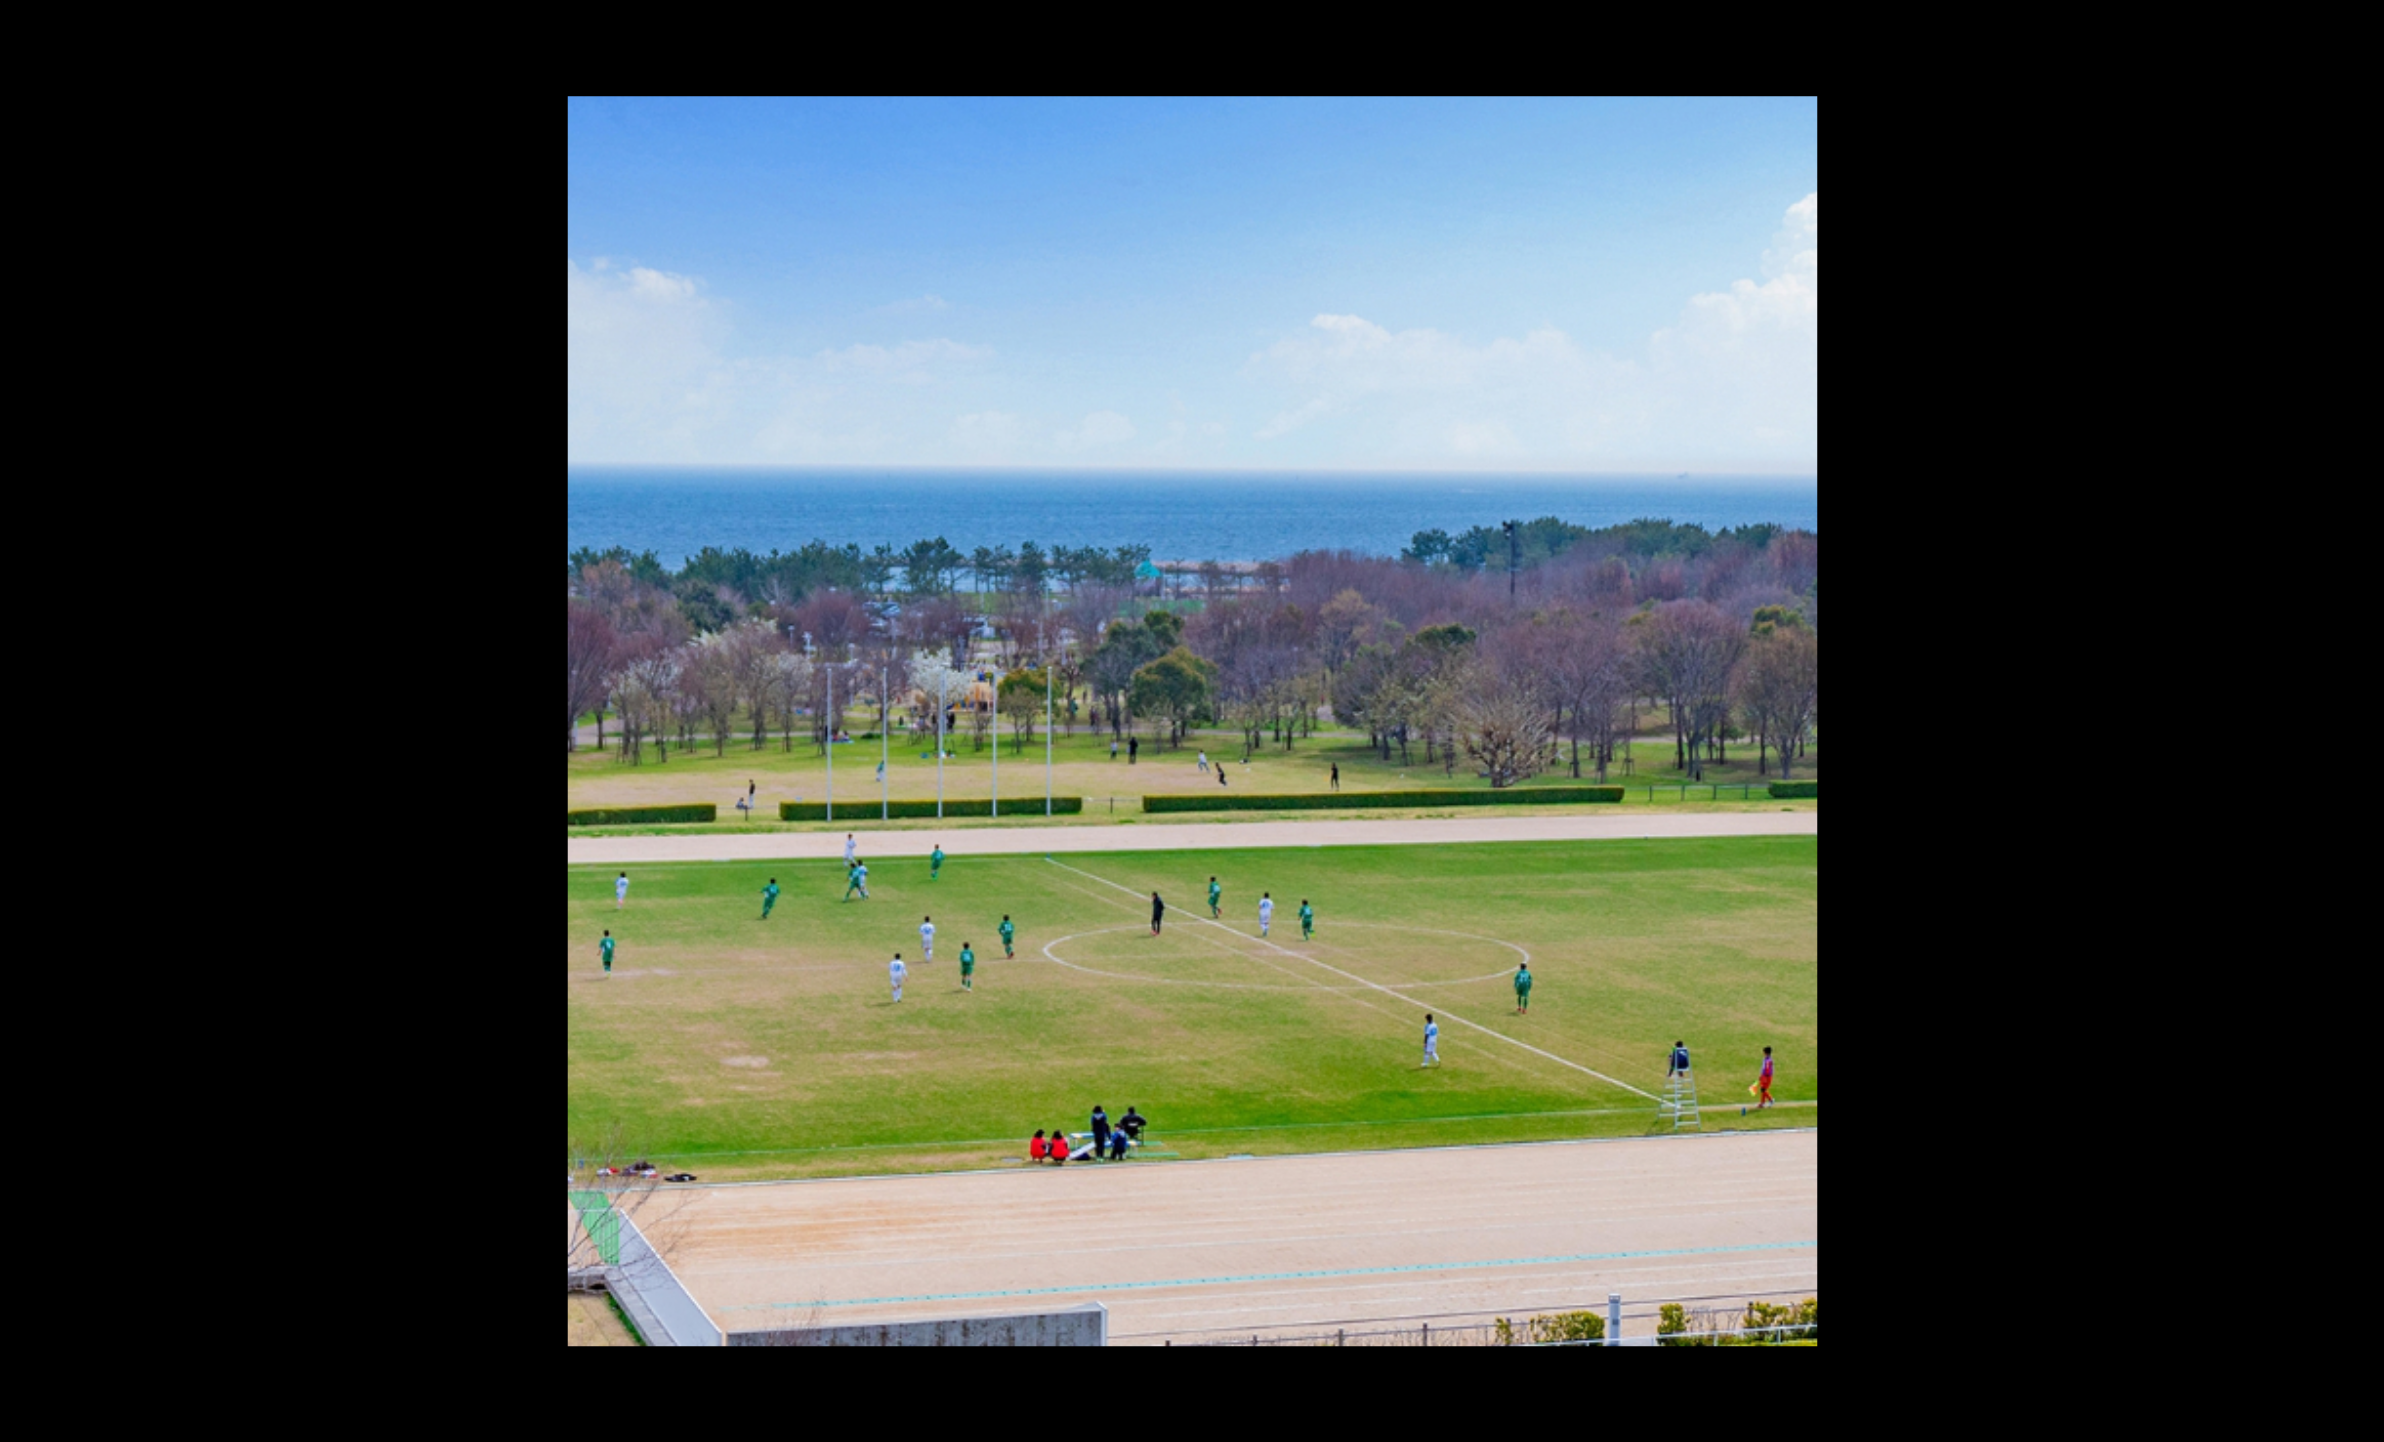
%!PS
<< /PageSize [2384 1442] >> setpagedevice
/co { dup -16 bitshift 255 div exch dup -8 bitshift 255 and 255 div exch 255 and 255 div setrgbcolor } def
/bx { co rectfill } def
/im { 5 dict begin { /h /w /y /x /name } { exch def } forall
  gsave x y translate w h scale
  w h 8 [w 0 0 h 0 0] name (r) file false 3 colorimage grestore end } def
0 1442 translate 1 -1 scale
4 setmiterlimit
0 0 2384 1442 16#000000 bx
(media/1.raw) 567 96 1251 1251 im
showpage
